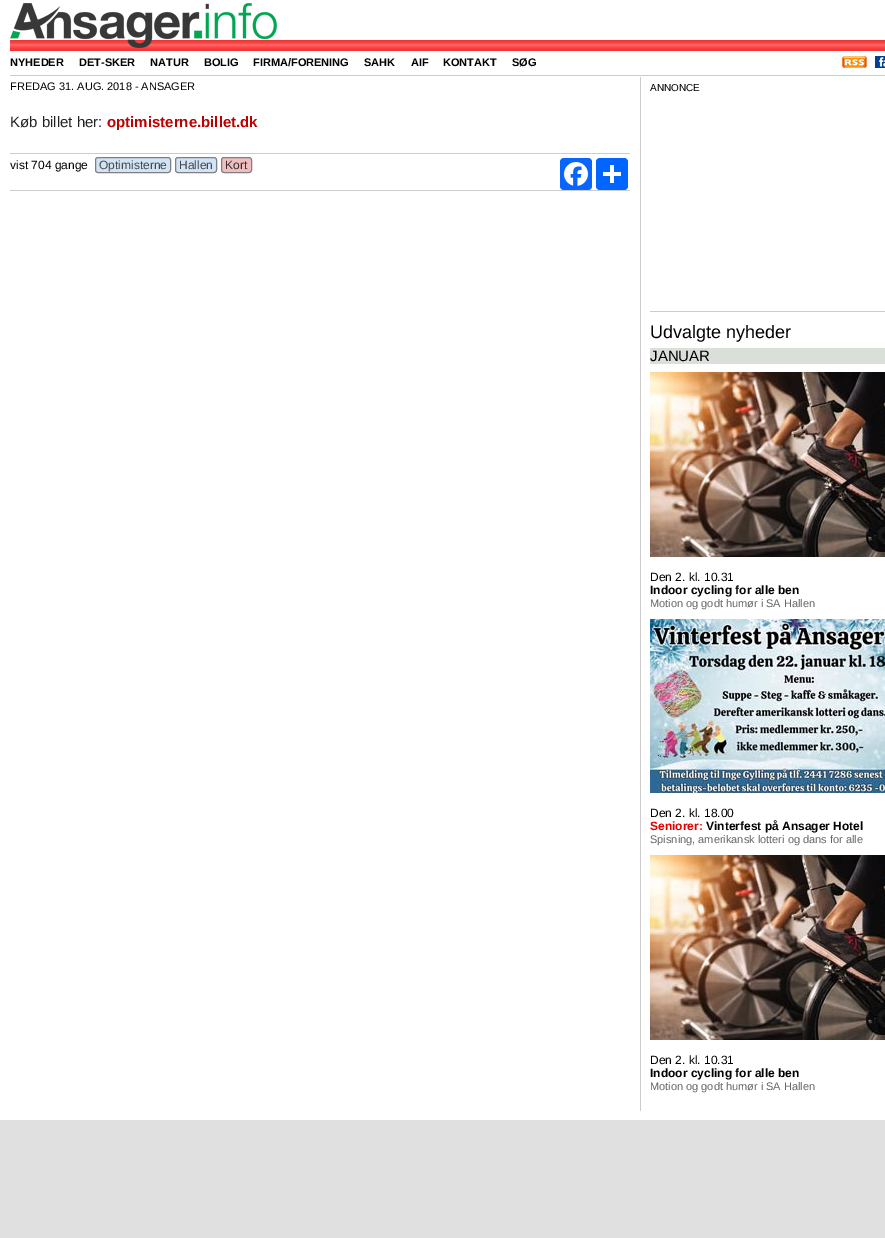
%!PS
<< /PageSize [885 1238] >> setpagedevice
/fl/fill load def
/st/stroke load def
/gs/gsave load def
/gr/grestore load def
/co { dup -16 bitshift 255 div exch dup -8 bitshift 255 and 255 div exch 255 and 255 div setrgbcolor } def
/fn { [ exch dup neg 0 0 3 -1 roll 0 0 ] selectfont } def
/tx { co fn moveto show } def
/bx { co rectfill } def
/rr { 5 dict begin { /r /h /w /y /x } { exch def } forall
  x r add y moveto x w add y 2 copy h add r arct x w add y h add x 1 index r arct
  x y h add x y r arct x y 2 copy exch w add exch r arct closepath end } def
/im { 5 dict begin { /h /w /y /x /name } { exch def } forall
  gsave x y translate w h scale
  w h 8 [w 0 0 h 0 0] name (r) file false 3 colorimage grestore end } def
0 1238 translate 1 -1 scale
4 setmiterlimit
0 0 885 1238 16#E0E0E0 bx
0 0 885 1120 16#FFFFFF bx
(media/1.raw) 10 40 875 11 im
(media/2.raw) 10 3 267 45 im
(media/3.raw) 842 56 25 12 im
(media/4.raw) 875 56 10 12 im
10 75 875 1 16#CCCCCC bx
640 77 1 1034 16#CCCCCC bx
10 153 620 1 16#CCCCCC bx
16#D1E4F7 co
95.5 157.5 75 15 2.5 rr gs fl gr
16#808080 co
st
16#D1E4F7 co
175.5 157.5 41 15 2.5 rr gs fl gr
16#808080 co
st
16#F0BEC0 co
221.5 157.5 30 15 2.5 rr gs fl gr
16#808080 co
st
16#0866FF co
560 158 32 32 4 rr fl
(media/5.raw) 564 162 24 24 im
16#0166FF co
596 158 32 32 4 rr fl
610 165 4 18 16#FFFFFF bx
603 172 18 4 16#FFFFFF bx
10 190 620 1 16#CCCCCC bx
650 311 235 1 16#CCCCCC bx
650 348 235 16 16#DBDFD9 bx
(media/6.raw) 650 372 235 185 im
(media/7.raw) 650 619 235 174 im
(media/6.raw) 650 855 235 185 im
(NYHEDER) 10 66 /LiberationSans-Bold 11 16#000000 tx
(DET-SKER) 79 66 /LiberationSans-Bold 11 16#000000 tx
(NATUR) 150 66 /LiberationSans-Bold 11 16#000000 tx
(BOLIG) 204 66 /LiberationSans-Bold 11 16#000000 tx
(FIRMA/FORENING) 253 66 /LiberationSans-Bold 11 16#000000 tx
(SAHK) 364 66 /LiberationSans-Bold 11 16#000000 tx
(AIF) 411 66 /LiberationSans-Bold 11 16#000000 tx
(KONTAKT) 443 66 /LiberationSans-Bold 11 16#000000 tx
(SØG) 512 66 /LiberationSans-Bold 11 16#000000 tx
(FREDAG 31. AUG. 2018 - ANSAGER) 10 90 /LiberationSans-Regular 11 16#000000 tx
(Køb billet her:) 10 127 /LiberationSans-Regular 15 16#222222 tx
(optimisterne.billet.dk) 107 127 /LiberationSans-Bold 15 16#BE0000 tx
(vist 704 gange) 10 169 /LiberationSans-Regular 12 16#000000 tx
(Optimisterne) 99 169 /LiberationSans-Regular 12 16#474747 tx
(Hallen) 179 169 /LiberationSans-Regular 12 16#474747 tx
(Kort) 225 169 /LiberationSans-Regular 12 16#303030 tx
(ANNONCE) 650 91 /LiberationSans-Regular 10 16#000000 tx
(Udvalgte nyheder) 650 338 /LiberationSans-Regular 18 16#000000 tx
(JANUAR) 650 361 /LiberationSans-Regular 15 16#000000 tx
(Den 2. kl. 10.31) 650 581 /LiberationSans-Regular 12 16#000000 tx
(Indoor cycling for alle ben) 650 594 /LiberationSans-Bold 12 16#000000 tx
(Motion og godt humør i SA Hallen) 650 607 /LiberationSans-Regular 11 16#666666 tx
(Den 2. kl. 18.00) 650 817 /LiberationSans-Regular 12 16#000000 tx
(Seniorer:) 650 830 /LiberationSans-Bold 12 16#E20000 tx
(Vinterfest på Ansager Hotel) 706 830 /LiberationSans-Bold 12 16#000000 tx
(Spisning, amerikansk lotteri og dans for alle) 650 843 /LiberationSans-Regular 11 16#666666 tx
(Den 2. kl. 10.31) 650 1064 /LiberationSans-Regular 12 16#000000 tx
(Indoor cycling for alle ben) 650 1077 /LiberationSans-Bold 12 16#000000 tx
(Motion og godt humør i SA Hallen) 650 1090 /LiberationSans-Regular 11 16#666666 tx
showpage
